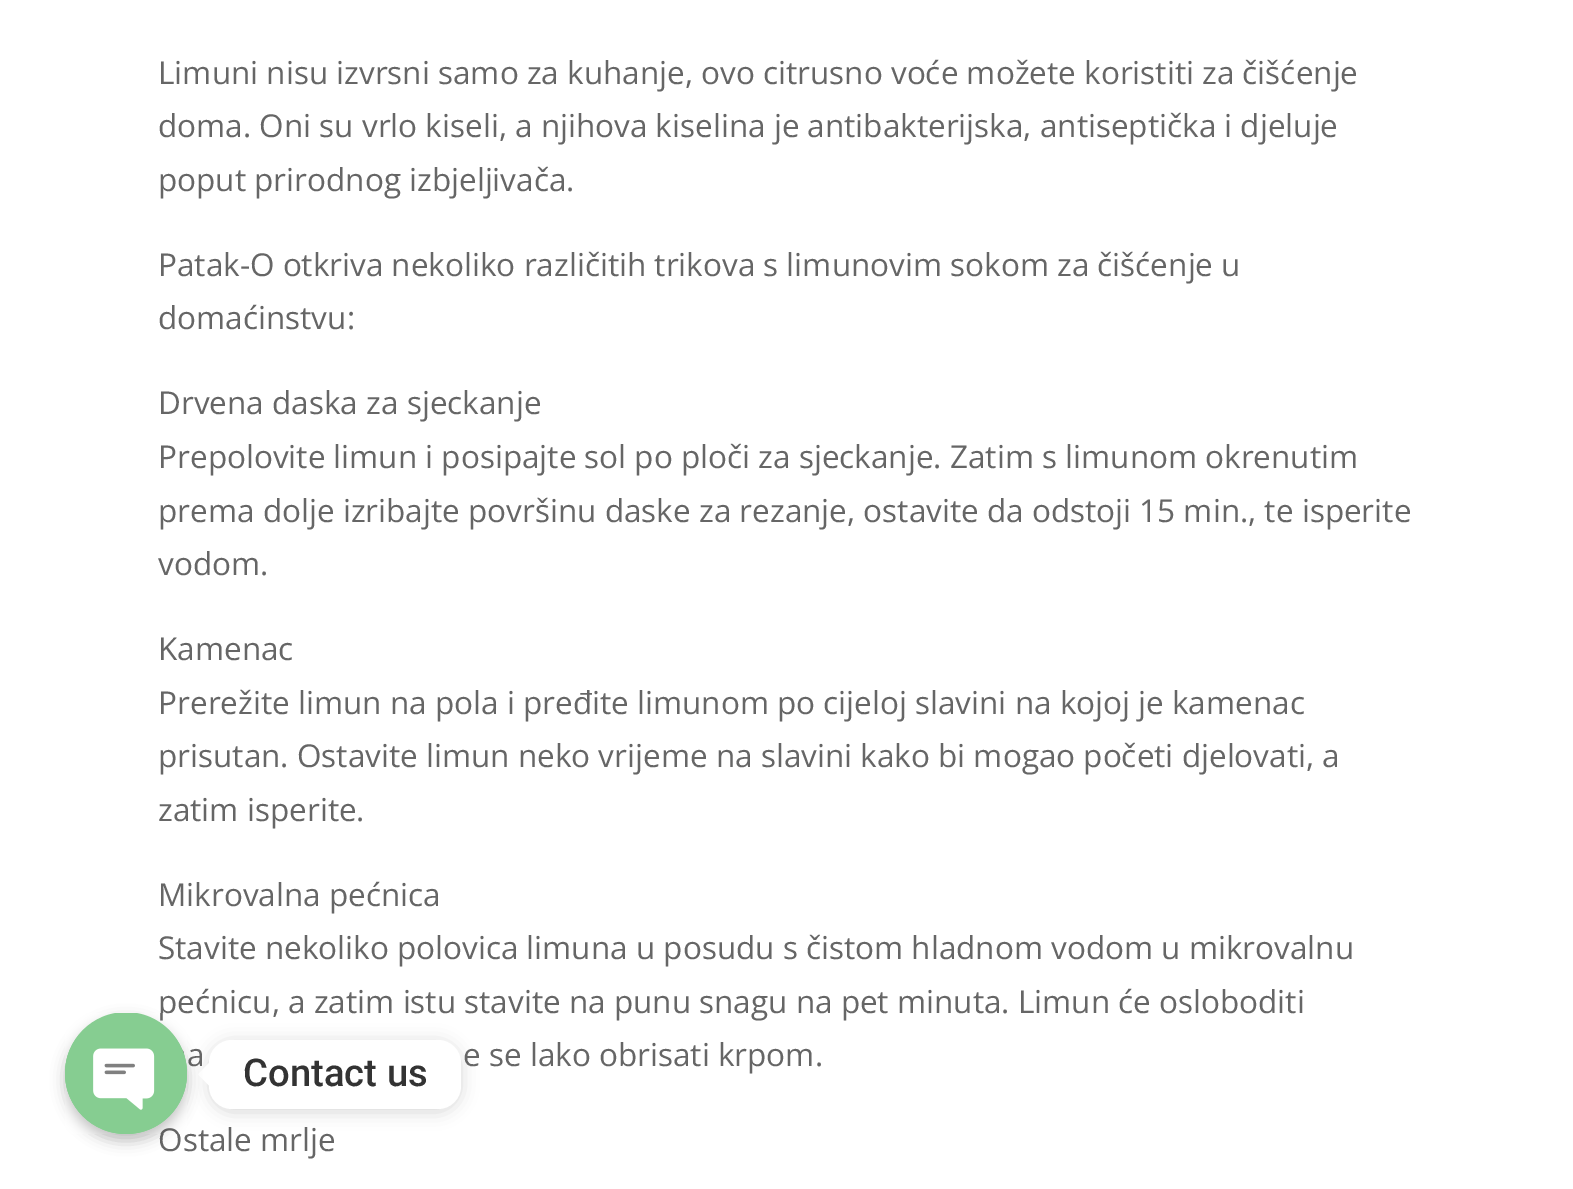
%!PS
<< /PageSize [1573 1189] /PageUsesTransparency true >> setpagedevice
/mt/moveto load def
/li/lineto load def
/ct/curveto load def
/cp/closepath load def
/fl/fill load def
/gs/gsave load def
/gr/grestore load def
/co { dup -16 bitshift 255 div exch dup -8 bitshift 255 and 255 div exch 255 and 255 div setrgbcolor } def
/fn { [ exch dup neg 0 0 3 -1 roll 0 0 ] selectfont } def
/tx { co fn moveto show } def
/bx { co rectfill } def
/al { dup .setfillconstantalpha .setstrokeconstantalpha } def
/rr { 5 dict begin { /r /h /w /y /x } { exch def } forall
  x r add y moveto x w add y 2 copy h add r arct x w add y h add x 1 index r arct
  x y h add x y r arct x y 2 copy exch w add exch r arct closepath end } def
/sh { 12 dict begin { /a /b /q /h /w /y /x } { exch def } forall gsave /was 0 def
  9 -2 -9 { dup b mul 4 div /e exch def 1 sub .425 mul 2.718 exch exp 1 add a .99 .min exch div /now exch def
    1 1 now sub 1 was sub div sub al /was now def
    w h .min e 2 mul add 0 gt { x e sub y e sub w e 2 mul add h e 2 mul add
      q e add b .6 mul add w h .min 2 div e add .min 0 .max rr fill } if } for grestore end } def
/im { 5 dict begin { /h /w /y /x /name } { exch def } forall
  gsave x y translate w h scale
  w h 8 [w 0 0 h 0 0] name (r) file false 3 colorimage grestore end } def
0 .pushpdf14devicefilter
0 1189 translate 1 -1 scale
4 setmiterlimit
0 0 1573 1189 16#FFFFFF bx
gs
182 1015 mt 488 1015 li 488 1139 li 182 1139 li cp 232 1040 mt 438 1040 li 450.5 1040 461 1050.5 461 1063 ct 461 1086 li 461 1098.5 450.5 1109 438 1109 ct 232 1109 li 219.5 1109 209 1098.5 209 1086 ct 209 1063 li 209 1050.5 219.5 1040 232 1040 ct cp eoclip newpath
16#000000 co
209 1042 252 70 23 8.5 .15 sh
gr
209 1040 252 69 23 rr fl
(Limuni nisu izvrsni samo za kuhanje, ovo citrusno voće možete koristiti za čišćenje) 158 84 /OpenSans-Regular 31.5 16#666666 tx
(doma. Oni su vrlo kiseli, a njihova kiselina je antibakterijska, antiseptička i djeluje) 158 137 /OpenSans-Regular 31.5 16#666666 tx
(poput prirodnog izbjeljivača.) 158 191 /OpenSans-Regular 31.5 16#666666 tx
(Patak-O otkriva nekoliko različitih trikova s limunovim sokom za čišćenje u) 158 276 /OpenSans-Regular 31.5 16#666666 tx
(domaćinstvu:) 158 329 /OpenSans-Regular 31.5 16#666666 tx
(Drvena daska za sjeckanje) 158 414 /OpenSans-Regular 31.5 16#666666 tx
(Prepolovite limun i posipajte sol po ploči za sjeckanje. Zatim s limunom okrenutim) 158 468 /OpenSans-Regular 31.5 16#666666 tx
(prema dolje izribajte površinu daske za rezanje, ostavite da odstoji 15 min., te isperite) 158 522 /OpenSans-Regular 31.5 16#666666 tx
(vodom.) 158 575 /OpenSans-Regular 31.5 16#666666 tx
(Kamenac) 158 660 /OpenSans-Regular 31.5 16#666666 tx
(Prerežite limun na pola i pređite limunom po cijeloj slavini na kojoj je kamenac) 158 714 /OpenSans-Regular 31.5 16#666666 tx
(prisutan. Ostavite limun neko vrijeme na slavini kako bi mogao početi djelovati, a) 158 767 /OpenSans-Regular 31.5 16#666666 tx
(zatim isperite.) 158 821 /OpenSans-Regular 31.5 16#666666 tx
(Mikrovalna pećnica) 158 906 /OpenSans-Regular 31.5 16#666666 tx
(Stavite nekoliko polovica limuna u posudu s čistom hladnom vodom u mikrovalnu) 158 959 /OpenSans-Regular 31.5 16#666666 tx
(pećnicu, a zatim istu stavite na punu snagu na pet minuta. Limun će osloboditi) 158 1013 /OpenSans-Regular 31.5 16#666666 tx
(a) 187 1066 /OpenSans-Regular 31.5 16#666666 tx
(e se lako obrisati krpom.) 463 1066 /OpenSans-Regular 31.5 16#666666 tx
(Ostale mrlje) 158 1151 /OpenSans-Regular 31.5 16#666666 tx
16#FFFFFF co
209 1063 mt 209 1085.5 li 198 1074.5 li cp fl
16#000000 co
65 1019 122 122 61 7 .25 sh
16#86CD91 co
65 1013 122 121 60.5 rr fl
(media/1.raw) 65 1013 122 121 im
(Contact us) 243 1086 /Roboto-Medium 38.25 16#333333 tx
.poppdf14devicefilter showpage
